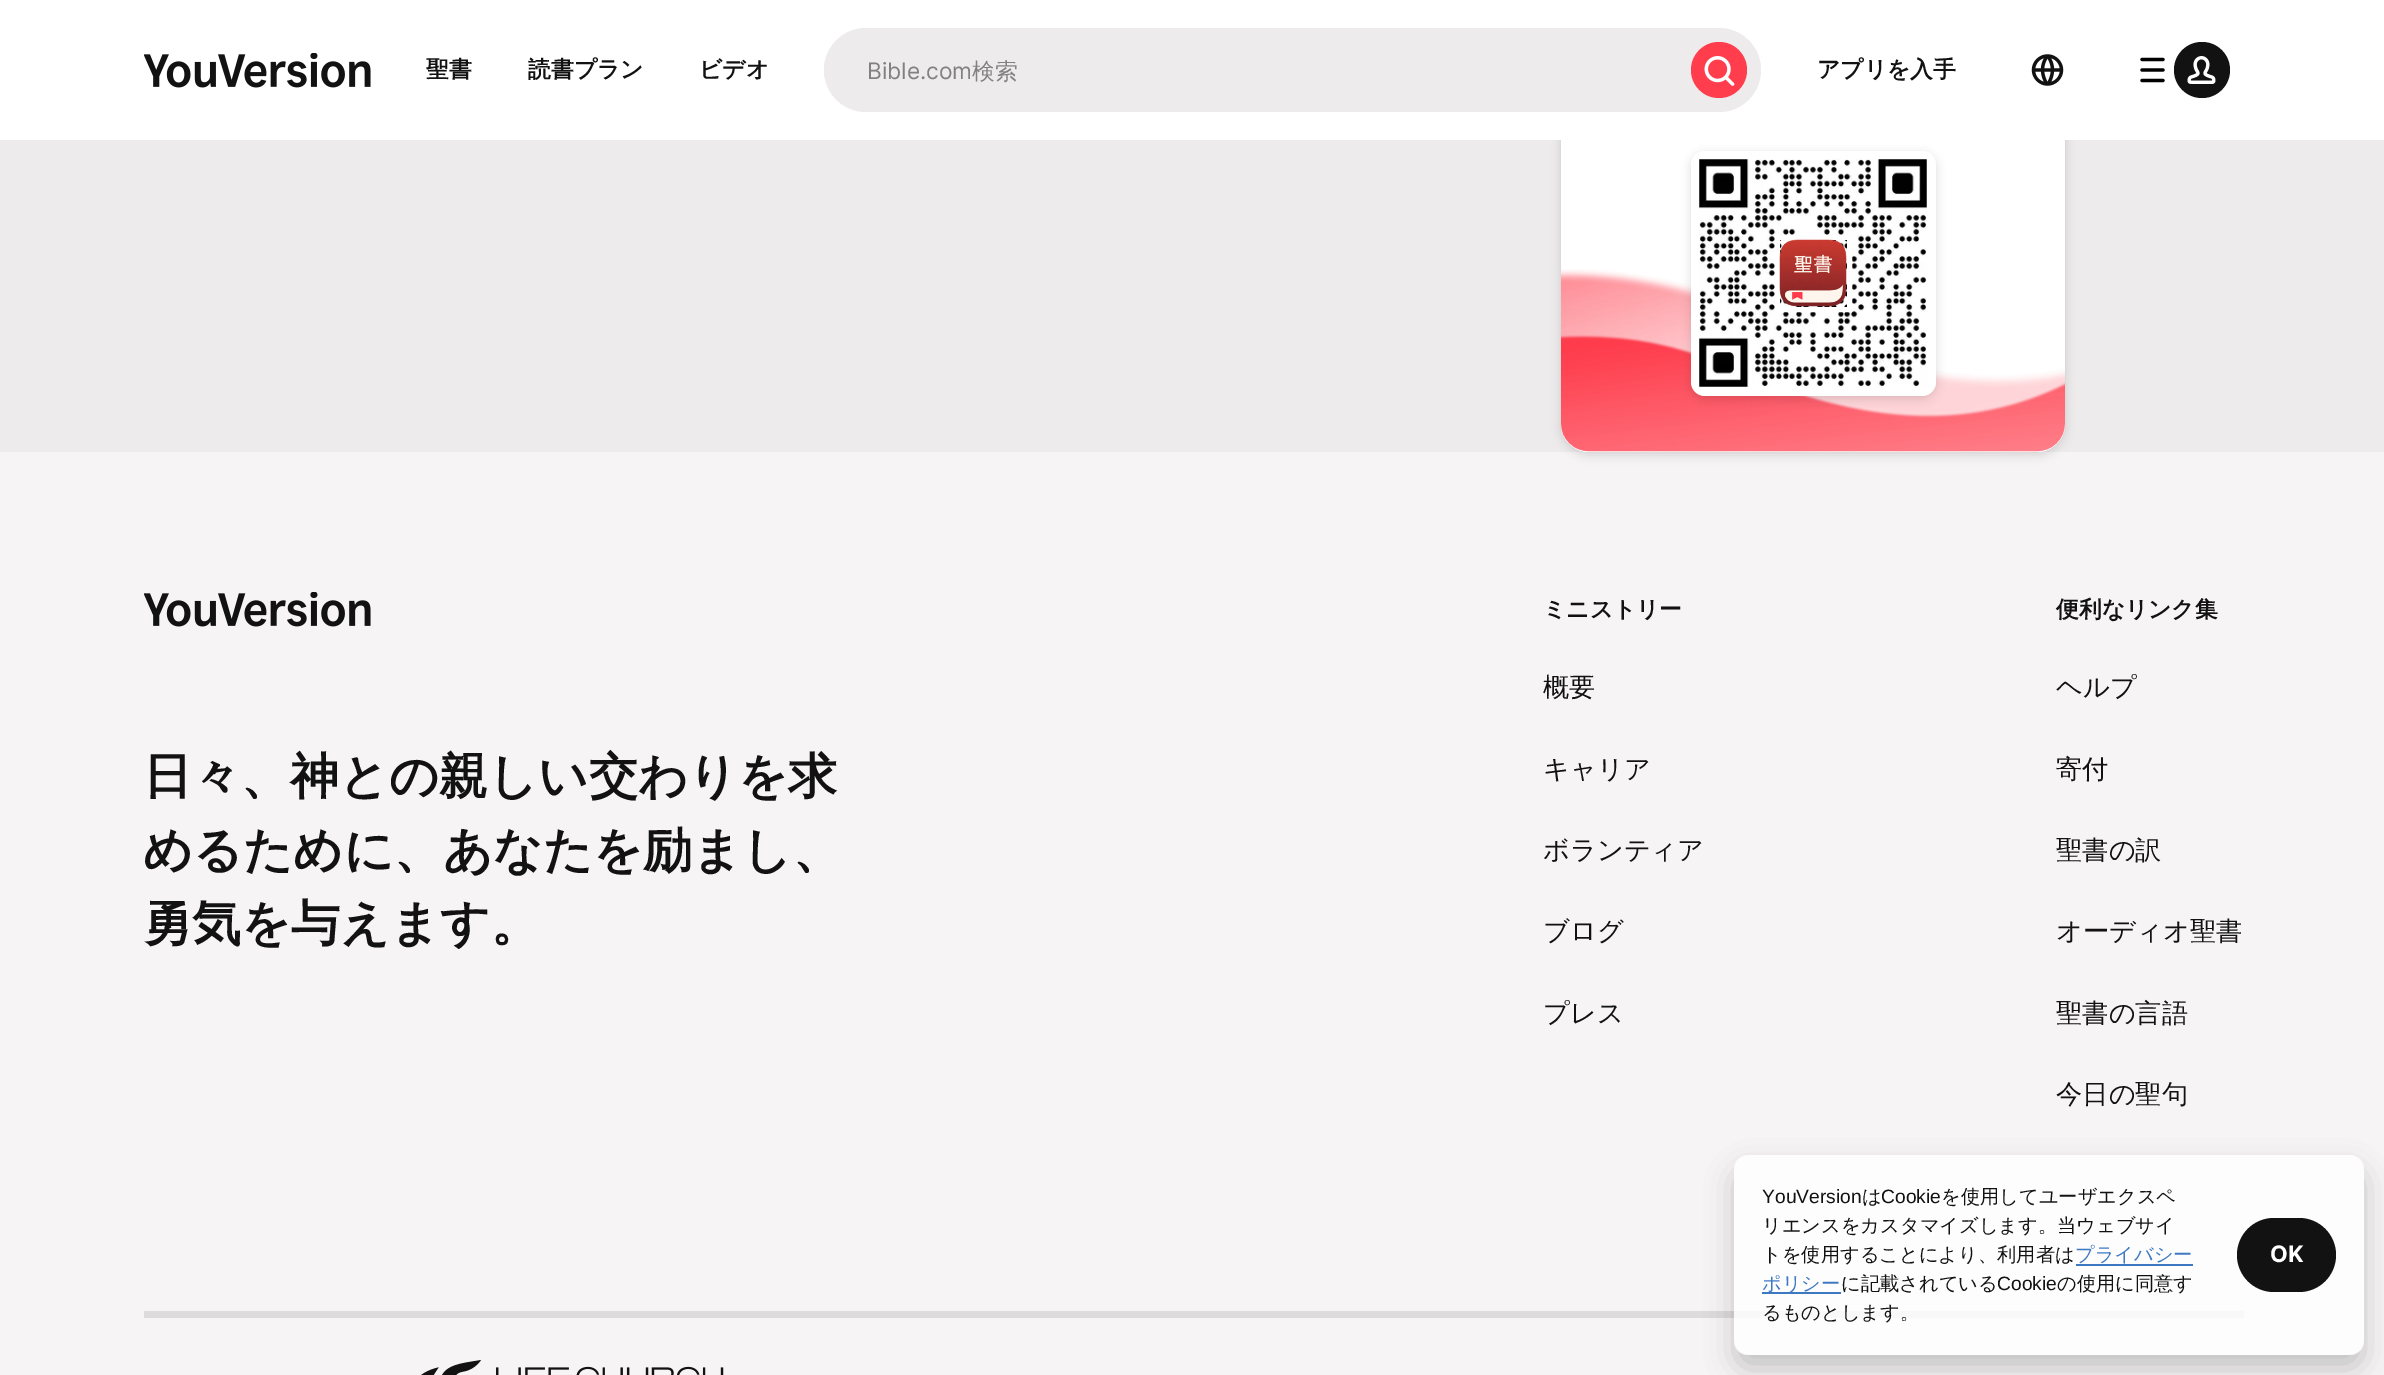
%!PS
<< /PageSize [2384 1375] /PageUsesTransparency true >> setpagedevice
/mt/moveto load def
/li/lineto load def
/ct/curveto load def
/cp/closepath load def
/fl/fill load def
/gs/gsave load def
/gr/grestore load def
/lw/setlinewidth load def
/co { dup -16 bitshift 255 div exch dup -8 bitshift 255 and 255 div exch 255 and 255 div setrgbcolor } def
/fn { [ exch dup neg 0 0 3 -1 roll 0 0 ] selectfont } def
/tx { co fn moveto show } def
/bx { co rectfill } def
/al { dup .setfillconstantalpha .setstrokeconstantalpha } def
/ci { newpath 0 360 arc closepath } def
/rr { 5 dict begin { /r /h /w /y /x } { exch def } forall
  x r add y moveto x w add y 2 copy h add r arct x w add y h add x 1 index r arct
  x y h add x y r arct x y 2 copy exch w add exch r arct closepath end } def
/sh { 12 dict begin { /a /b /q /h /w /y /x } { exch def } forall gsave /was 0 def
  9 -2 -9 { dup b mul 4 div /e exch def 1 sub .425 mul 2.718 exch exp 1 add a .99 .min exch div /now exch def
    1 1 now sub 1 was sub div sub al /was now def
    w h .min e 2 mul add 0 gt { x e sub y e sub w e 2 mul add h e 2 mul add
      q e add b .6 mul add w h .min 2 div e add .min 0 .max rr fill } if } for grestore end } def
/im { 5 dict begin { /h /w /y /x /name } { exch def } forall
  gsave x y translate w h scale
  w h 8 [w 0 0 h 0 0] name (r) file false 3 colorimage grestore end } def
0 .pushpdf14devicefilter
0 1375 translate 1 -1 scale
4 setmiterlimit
0 0 2384 1375 16#EDEBEB bx
0 452 2384 923 16#F6F4F4 bx
16#121212 co
1561 -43 504 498 28 5 .15 sh
16#FFFFFF co
1561 -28 504 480 28 rr fl
(media/8.raw) 1561 269 504 183 im
16#121212 co
1691 154 245 245 14 5 .15 sh
0 0 2384 140 16#FFFFFF bx
(media/1.raw) 144 53 227 35 im
16#EDEBEB co
824 28 937 84 42 rr fl
824 42 853 56 28 rr fl
16#FF3D4D co
1719 70 28 ci fl
(media/2.raw) 1704 56 31 30 im
(media/3.raw) 2031 54 33 32 im
(media/4.raw) 2140 57 25 26 im
16#121212 co
2202 70 28 ci fl
(media/5.raw) 2187 56 29 28 im
16#FFFFFF co
1691 151 245 245 14 rr fl
(media/6.raw) 1699 159 228 228 im
5 lw
1777.5 237.5 72 72 rectstroke
(media/7.raw) 1779 239 68 68 im
(media/9.raw) 144 592 227 35 im
144 1311 2100 7 16#DDDBDB bx
(media/10.raw) 421 1360 303 15 im
gs
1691 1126 mt 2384 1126 li 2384 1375 li 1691 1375 li cp 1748 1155 mt 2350 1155 li 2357.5 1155 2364 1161.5 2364 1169 ct 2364 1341 li 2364 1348.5 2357.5 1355 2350 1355 ct 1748 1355 li 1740.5 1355 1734 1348.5 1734 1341 ct 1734 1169 li 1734 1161.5 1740.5 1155 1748 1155 ct cp eoclip newpath
16#000000 co
1734 1169 630 200 14 14 .2 sh
gr
0.8 al
16#FFFFFF co
1734 1155 630 200 14 rr fl
1 al
2076 1264 117 2 16#3D79C2 bx
1762 1292 79 2 16#3D79C2 bx
16#121212 co
2237 1218 99 74 37 rr fl
(聖書) 426 77 /WenQuanYiZenHei-Bold 22.75 16#121212 tx
(読書プラン) 528 77 /WenQuanYiZenHei-Bold 22.75 16#121212 tx
(ビデオ) 699 77 /WenQuanYiZenHei-Bold 22.75 16#121212 tx
(Bible.com) 867 79 /Inter-Regular 22.75 16#828080 tx
(検索) 972 79 /WenQuanYiZenHei-Medium 22.75 16#828080 tx
(アプリを入手) 1817 77 /WenQuanYiZenHei-Bold 22.75 16#121212 tx
(日々、神との親しい交わりを求) 143 793 /WenQuanYiZenHei-Bold 49 16#121212 tx
(めるために、あなたを励まし、) 143 867 /WenQuanYiZenHei-Bold 49 16#121212 tx
(勇気を与えます。) 143 940 /WenQuanYiZenHei-Bold 49 16#121212 tx
(ミニストリー) 1543 617 /WenQuanYiZenHei-Bold 22.75 16#121212 tx
(概要) 1543 696 /WenQuanYiZenHei-Medium 26.25 16#121212 tx
(キャリア) 1543 778 /WenQuanYiZenHei-Medium 26.25 16#121212 tx
(ボランティア) 1543 859 /WenQuanYiZenHei-Medium 26.25 16#121212 tx
(ブログ) 1543 940 /WenQuanYiZenHei-Medium 26.25 16#121212 tx
(プレス) 1543 1022 /WenQuanYiZenHei-Medium 26.25 16#121212 tx
(便利なリンク集) 2056 617 /WenQuanYiZenHei-Bold 22.75 16#121212 tx
(ヘルプ) 2056 696 /WenQuanYiZenHei-Medium 26.25 16#121212 tx
(寄付) 2056 778 /WenQuanYiZenHei-Medium 26.25 16#121212 tx
(聖書の訳) 2056 859 /WenQuanYiZenHei-Medium 26.25 16#121212 tx
(オーディオ聖書) 2056 940 /WenQuanYiZenHei-Medium 26.25 16#121212 tx
(聖書の言語) 2056 1022 /WenQuanYiZenHei-Medium 26.25 16#121212 tx
(今日の聖句) 2056 1103 /WenQuanYiZenHei-Medium 26.25 16#121212 tx
(YouVersion) 1762 1203 /LiberationSans-Regular 19.25 16#121212 tx
(は) 1862 1203 /WenQuanYiZenHei-Medium 19.25 16#121212 tx
(Cookie) 1881 1203 /LiberationSans-Regular 19.25 16#121212 tx
(を使用してユーザエクスペ) 1941 1203 /WenQuanYiZenHei-Medium 19.25 16#121212 tx
(リエンスをカスタマイズします。当ウェブサイ) 1762 1232 /WenQuanYiZenHei-Medium 19.25 16#121212 tx
(トを使用することにより、利用者は) 1762 1261 /WenQuanYiZenHei-Medium 19.25 16#121212 tx
(プライバシー) 2075 1261 /WenQuanYiZenHei-Medium 19.25 16#3D79C2 tx
(ポリシー) 1762 1290 /WenQuanYiZenHei-Medium 19.25 16#3D79C2 tx
(に記載されている) 1841 1290 /WenQuanYiZenHei-Medium 19.25 16#121212 tx
(Cookie) 1997 1290 /LiberationSans-Regular 19.25 16#121212 tx
(の使用に同意す) 2057 1290 /WenQuanYiZenHei-Medium 19.25 16#121212 tx
(るものとします。) 1762 1319 /WenQuanYiZenHei-Medium 19.25 16#121212 tx
(OK) 2270 1262 /Inter-Bold 22.75 16#FFFFFF tx
.poppdf14devicefilter showpage
